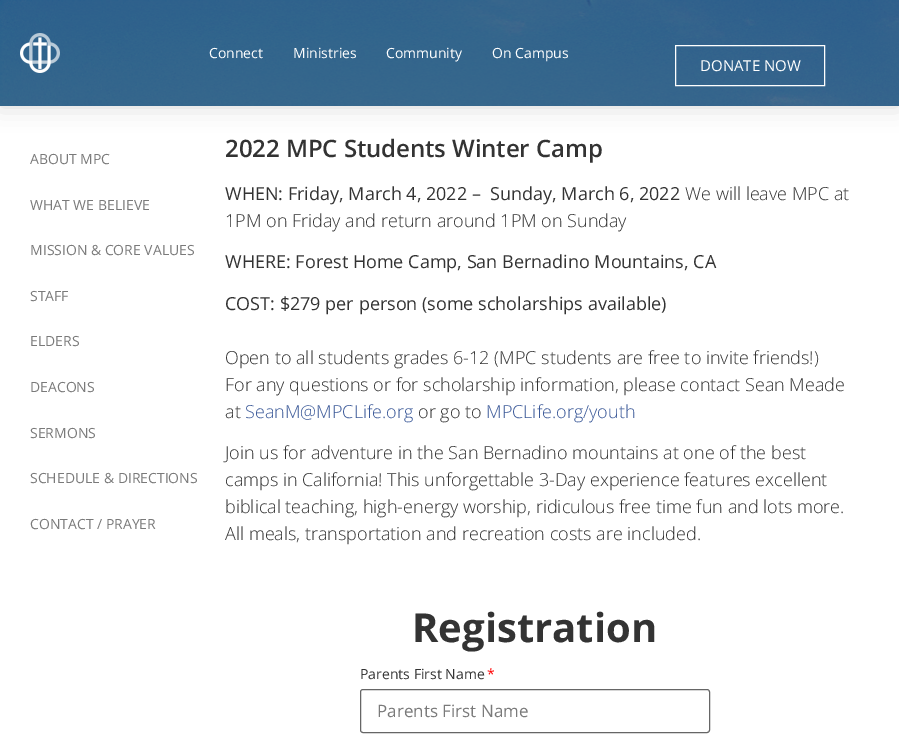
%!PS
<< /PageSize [899 742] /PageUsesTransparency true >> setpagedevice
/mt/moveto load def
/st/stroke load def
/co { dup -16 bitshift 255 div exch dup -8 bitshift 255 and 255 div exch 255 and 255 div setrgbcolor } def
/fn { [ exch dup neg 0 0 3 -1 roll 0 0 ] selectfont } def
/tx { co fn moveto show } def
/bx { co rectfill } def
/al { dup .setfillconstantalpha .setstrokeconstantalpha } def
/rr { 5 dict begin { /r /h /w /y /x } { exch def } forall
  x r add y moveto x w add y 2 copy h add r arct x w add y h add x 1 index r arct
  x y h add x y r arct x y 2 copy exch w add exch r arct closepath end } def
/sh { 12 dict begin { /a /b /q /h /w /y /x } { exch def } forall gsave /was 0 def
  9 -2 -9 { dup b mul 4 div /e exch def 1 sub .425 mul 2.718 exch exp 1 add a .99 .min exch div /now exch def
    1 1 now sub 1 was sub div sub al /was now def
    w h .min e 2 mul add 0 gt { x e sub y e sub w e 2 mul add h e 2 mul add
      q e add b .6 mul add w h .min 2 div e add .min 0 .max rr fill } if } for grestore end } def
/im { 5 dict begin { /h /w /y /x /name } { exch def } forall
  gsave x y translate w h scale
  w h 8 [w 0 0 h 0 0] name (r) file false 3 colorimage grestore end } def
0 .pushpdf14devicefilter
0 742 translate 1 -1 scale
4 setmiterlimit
0 0 899 742 16#FFFFFF bx
16#000000 co
0 0 899 106 0 12 .15 sh
(media/1.raw) 0 0 899 106 im
(media/2.raw) 20 33 40 40 im
16#FFFFFF co
675.5 45.5 149 40 rectstroke
16#666666 co
360.5 689.5 349 43 2.5 rr st
(Connect) 209 58 /OpenSans-Regular 14 16#FFFFFF tx
(Ministries) 293 58 /OpenSans-Regular 14 16#FFFFFF tx
(Community) 386 58 /OpenSans-Regular 14 16#FFFFFF tx
(On Campus) 492 58 /OpenSans-Regular 14 16#FFFFFF tx
(DONATE NOW) 700 71 /OpenSans-Regular 15 16#FFFFFF tx
(ABOUT MPC) 30 164 /OpenSans-Regular 14 16#7A7A7A tx
(WHAT WE BELIEVE) 30 210 /OpenSans-Regular 14 16#7A7A7A tx
(MISSION & CORE VALUES) 30 255 /OpenSans-Regular 14 16#7A7A7A tx
(STAFF) 30 301 /OpenSans-Regular 14 16#7A7A7A tx
(ELDERS) 30 346 /OpenSans-Regular 14 16#7A7A7A tx
(DEACONS) 30 392 /OpenSans-Regular 14 16#7A7A7A tx
(SERMONS) 30 438 /OpenSans-Regular 14 16#7A7A7A tx
(SCHEDULE & DIRECTIONS) 30 483 /OpenSans-Regular 14 16#7A7A7A tx
(CONTACT / PRAYER) 30 529 /OpenSans-Regular 14 16#7A7A7A tx
/OpenSans-SemiBold 24 fn
16#333333 co
225 157 mt -.1 0 (2022 MPC Students Winter Camp) ashow
(WHEN: Friday, March 4, 2022 –  Sunday, March 6, 2022) 225 200 /OpenSans-Regular 18 16#333333 tx
(We will leave MPC at) 685 200 /OpenSans-Light 18 16#333333 tx
(1PM on Friday and return around 1PM on Sunday) 225 227 /OpenSans-Light 18 16#333333 tx
(WHERE: Forest Home Camp, San Bernadino Mountains, CA) 225 268 /OpenSans-Regular 18 16#333333 tx
(COST: $279 per person \(some scholarships available\)) 225 310 /OpenSans-Regular 18 16#333333 tx
(Open to all students grades 6-12 \(MPC students are free to invite friends!\)) 225 364 /OpenSans-Light 18 16#333333 tx
(For any questions or for scholarship information, please contact Sean Meade) 225 391 /OpenSans-Light 18 16#333333 tx
(at) 225 418 /OpenSans-Light 18 16#333333 tx
(SeanM@MPCLife.org) 245 418 /OpenSans-Light 18 16#3B5998 tx
(or go to) 418 418 /OpenSans-Light 18 16#333333 tx
(MPCLife.org/youth) 486 418 /OpenSans-Light 18 16#3B5998 tx
(Join us for adventure in the San Bernadino mountains at one of the best) 225 459 /OpenSans-Light 18 16#333333 tx
(camps in California! This unforgettable 3-Day experience features excellent) 225 486 /OpenSans-Light 18 16#333333 tx
(biblical teaching, high-energy worship, ridiculous free time fun and lots more.) 225 513 /OpenSans-Light 18 16#333333 tx
(All meals, transportation and recreation costs are included.) 225 540 /OpenSans-Light 18 16#333333 tx
(Registration) 412 642 /OpenSans-Bold 40 16#333333 tx
(Parents First Name) 360 679 /OpenSans-Regular 14 16#333333 tx
(*) 487 679 /OpenSans-Regular 14 16#FF0000 tx
(Parents First Name) 377 717 /OpenSans-Regular 17 16#7A7A7A tx
.poppdf14devicefilter showpage
